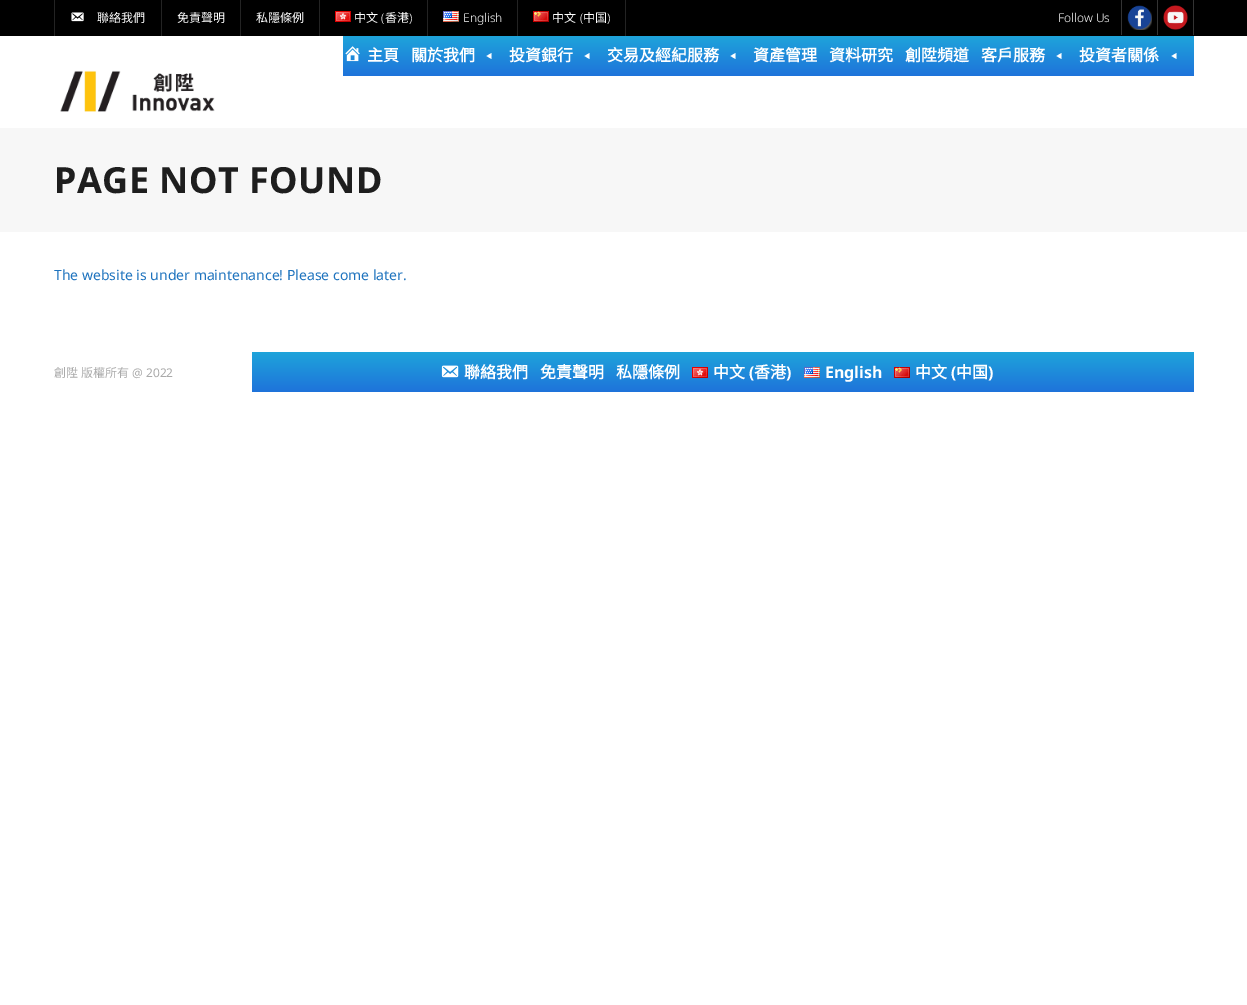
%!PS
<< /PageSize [1247 1005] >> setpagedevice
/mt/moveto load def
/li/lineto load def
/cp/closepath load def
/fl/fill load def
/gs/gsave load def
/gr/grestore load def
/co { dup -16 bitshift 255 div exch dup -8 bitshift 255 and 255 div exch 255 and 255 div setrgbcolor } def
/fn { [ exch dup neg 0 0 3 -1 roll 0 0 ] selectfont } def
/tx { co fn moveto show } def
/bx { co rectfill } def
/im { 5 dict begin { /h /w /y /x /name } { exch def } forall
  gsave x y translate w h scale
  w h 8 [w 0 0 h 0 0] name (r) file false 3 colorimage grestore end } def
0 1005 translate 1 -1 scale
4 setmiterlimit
0 0 1247 1005 16#FFFFFF bx
0 0 1247 36 16#000000 bx
54 0 1 36 16#232323 bx
(media/1.raw) 71 12 13 10 im
161 0 1 36 16#232323 bx
240 0 1 36 16#232323 bx
319 0 1 36 16#232323 bx
(media/2.raw) 335 11 16 11 im
427 0 1 36 16#232323 bx
(media/3.raw) 443 11 16 11 im
625 0 1 36 16#232323 bx
517 0 1 36 16#232323 bx
(media/4.raw) 533 11 16 11 im
(media/5.raw) 1127 5 25 25 im
1121 0 1 35 16#333333 bx
(media/6.raw) 1163 5 25 25 im
1193 0 1 35 16#333333 bx
1157 0 1 35 16#333333 bx
gs 343 36 mt 1194 36 li 1194 76 li 343 76 li cp clip newpath
<< /ShadingType 2 /ColorSpace /DeviceRGB /Coords [769 36 769 76] /Extend [true true] /Function << /FunctionType 2 /Domain [0 1] /C0 [.118 .643 .855] /C1 [.118 .451 .855] /N 1 >> >> shfill gr
(media/7.raw) 345 46 15 16 im
16#FFFFFF co
491.5 59 mt 486.5 56 li 491.5 53 li cp fl
589.5 59 mt 584.5 56 li 589.5 53 li cp fl
735.5 59 mt 730.5 56 li 735.5 53 li cp fl
1061.5 59 mt 1056.5 56 li 1061.5 53 li cp fl
1176.5 59 mt 1171.5 56 li 1176.5 53 li cp fl
(media/8.raw) 60 70 155 42 im
0 128 1247 104 16#F7F7F7 bx
gs 252 352 mt 1194 352 li 1194 392 li 252 392 li cp clip newpath
<< /ShadingType 2 /ColorSpace /DeviceRGB /Coords [723 352 723 392] /Extend [true true] /Function << /FunctionType 2 /Domain [0 1] /C0 [.118 .643 .855] /C1 [.118 .451 .855] /N 1 >> >> shfill gr
(media/9.raw) 441 365 18 13 im
(media/2.raw) 692 367 16 11 im
(media/3.raw) 804 367 16 11 im
(media/4.raw) 894 367 16 11 im
(聯絡我們) 97 22 /NotoSansCJKHK-Regular 12 16#FFFFFF tx
(免責聲明) 177 22 /NotoSansCJKHK-Regular 12 16#FFFFFF tx
(私隱條例) 256 22 /NotoSansCJKHK-Regular 12 16#FFFFFF tx
(中文) 354 22 /NotoSansCJKHK-Regular 12 16#FFFFFF tx
(\() 381 22 /NotoSans-Light 12 16#FFFFFF tx
(香港) 385 22 /NotoSansCJKHK-Regular 12 16#FFFFFF tx
(\)) 409 22 /NotoSans-Light 12 16#FFFFFF tx
(English) 463 22 /NotoSans-Light 12 16#FFFFFF tx
(中文) 552 22 /NotoSansCJKHK-Regular 12 16#FFFFFF tx
(\() 580 22 /NotoSans-Light 12 16#FFFFFF tx
(中国) 583 22 /NotoSansCJKHK-Regular 12 16#FFFFFF tx
(\)) 607 22 /NotoSans-Light 12 16#FFFFFF tx
(Follow Us) 1058 22 /NotoSans-Light 12 16#FFFFFF tx
(主頁) 367 61 /NotoSansCJKHK-Bold 16 16#FFFFFF tx
(關於我們) 411 61 /NotoSansCJKHK-Bold 16 16#FFFFFF tx
(投資銀行) 509 61 /NotoSansCJKHK-Bold 16 16#FFFFFF tx
(交易及經紀服務) 607 61 /NotoSansCJKHK-Bold 16 16#FFFFFF tx
(資產管理) 753 61 /NotoSansCJKHK-Bold 16 16#FFFFFF tx
(資料研究) 829 61 /NotoSansCJKHK-Bold 16 16#FFFFFF tx
(創陞頻道) 905 61 /NotoSansCJKHK-Bold 16 16#FFFFFF tx
(客戶服務) 981 61 /NotoSansCJKHK-Bold 16 16#FFFFFF tx
(投資者關係) 1079 61 /NotoSansCJKHK-Bold 16 16#FFFFFF tx
/NotoSans-Bold 36 fn
16#1E1E1E co
54 193 mt .5 0 (PAGE NOT FOUND) ashow
(The website is under maintenance! Please come later.) 54 280 /NotoSans-Regular 14 16#1E73BE tx
(創陞) 54 377 /NotoSansCJKHK-Regular 12 16#AAAAAA tx
(版權所有) 81 377 /NotoSansCJKHK-Regular 12 16#AAAAAA tx
(@ 2022) 132 377 /NotoSans-Regular 12 16#AAAAAA tx
(聯絡我們) 464 378 /NotoSansCJKHK-Bold 16 16#FFFFFF tx
(免責聲明) 540 378 /NotoSansCJKHK-Bold 16 16#FFFFFF tx
(私隱條例) 616 378 /NotoSansCJKHK-Bold 16 16#FFFFFF tx
(中文) 713 378 /NotoSansCJKHK-Bold 16 16#FFFFFF tx
(\() 749 378 /NotoSans-Bold 16 16#FFFFFF tx
(香港) 754 378 /NotoSansCJKHK-Bold 16 16#FFFFFF tx
(\)) 786 378 /NotoSans-Bold 16 16#FFFFFF tx
(English) 825 378 /NotoSans-Bold 16 16#FFFFFF tx
(中文) 915 378 /NotoSansCJKHK-Bold 16 16#FFFFFF tx
(\() 951 378 /NotoSans-Bold 16 16#FFFFFF tx
(中国) 956 378 /NotoSansCJKHK-Bold 16 16#FFFFFF tx
(\)) 988 378 /NotoSans-Bold 16 16#FFFFFF tx
showpage
